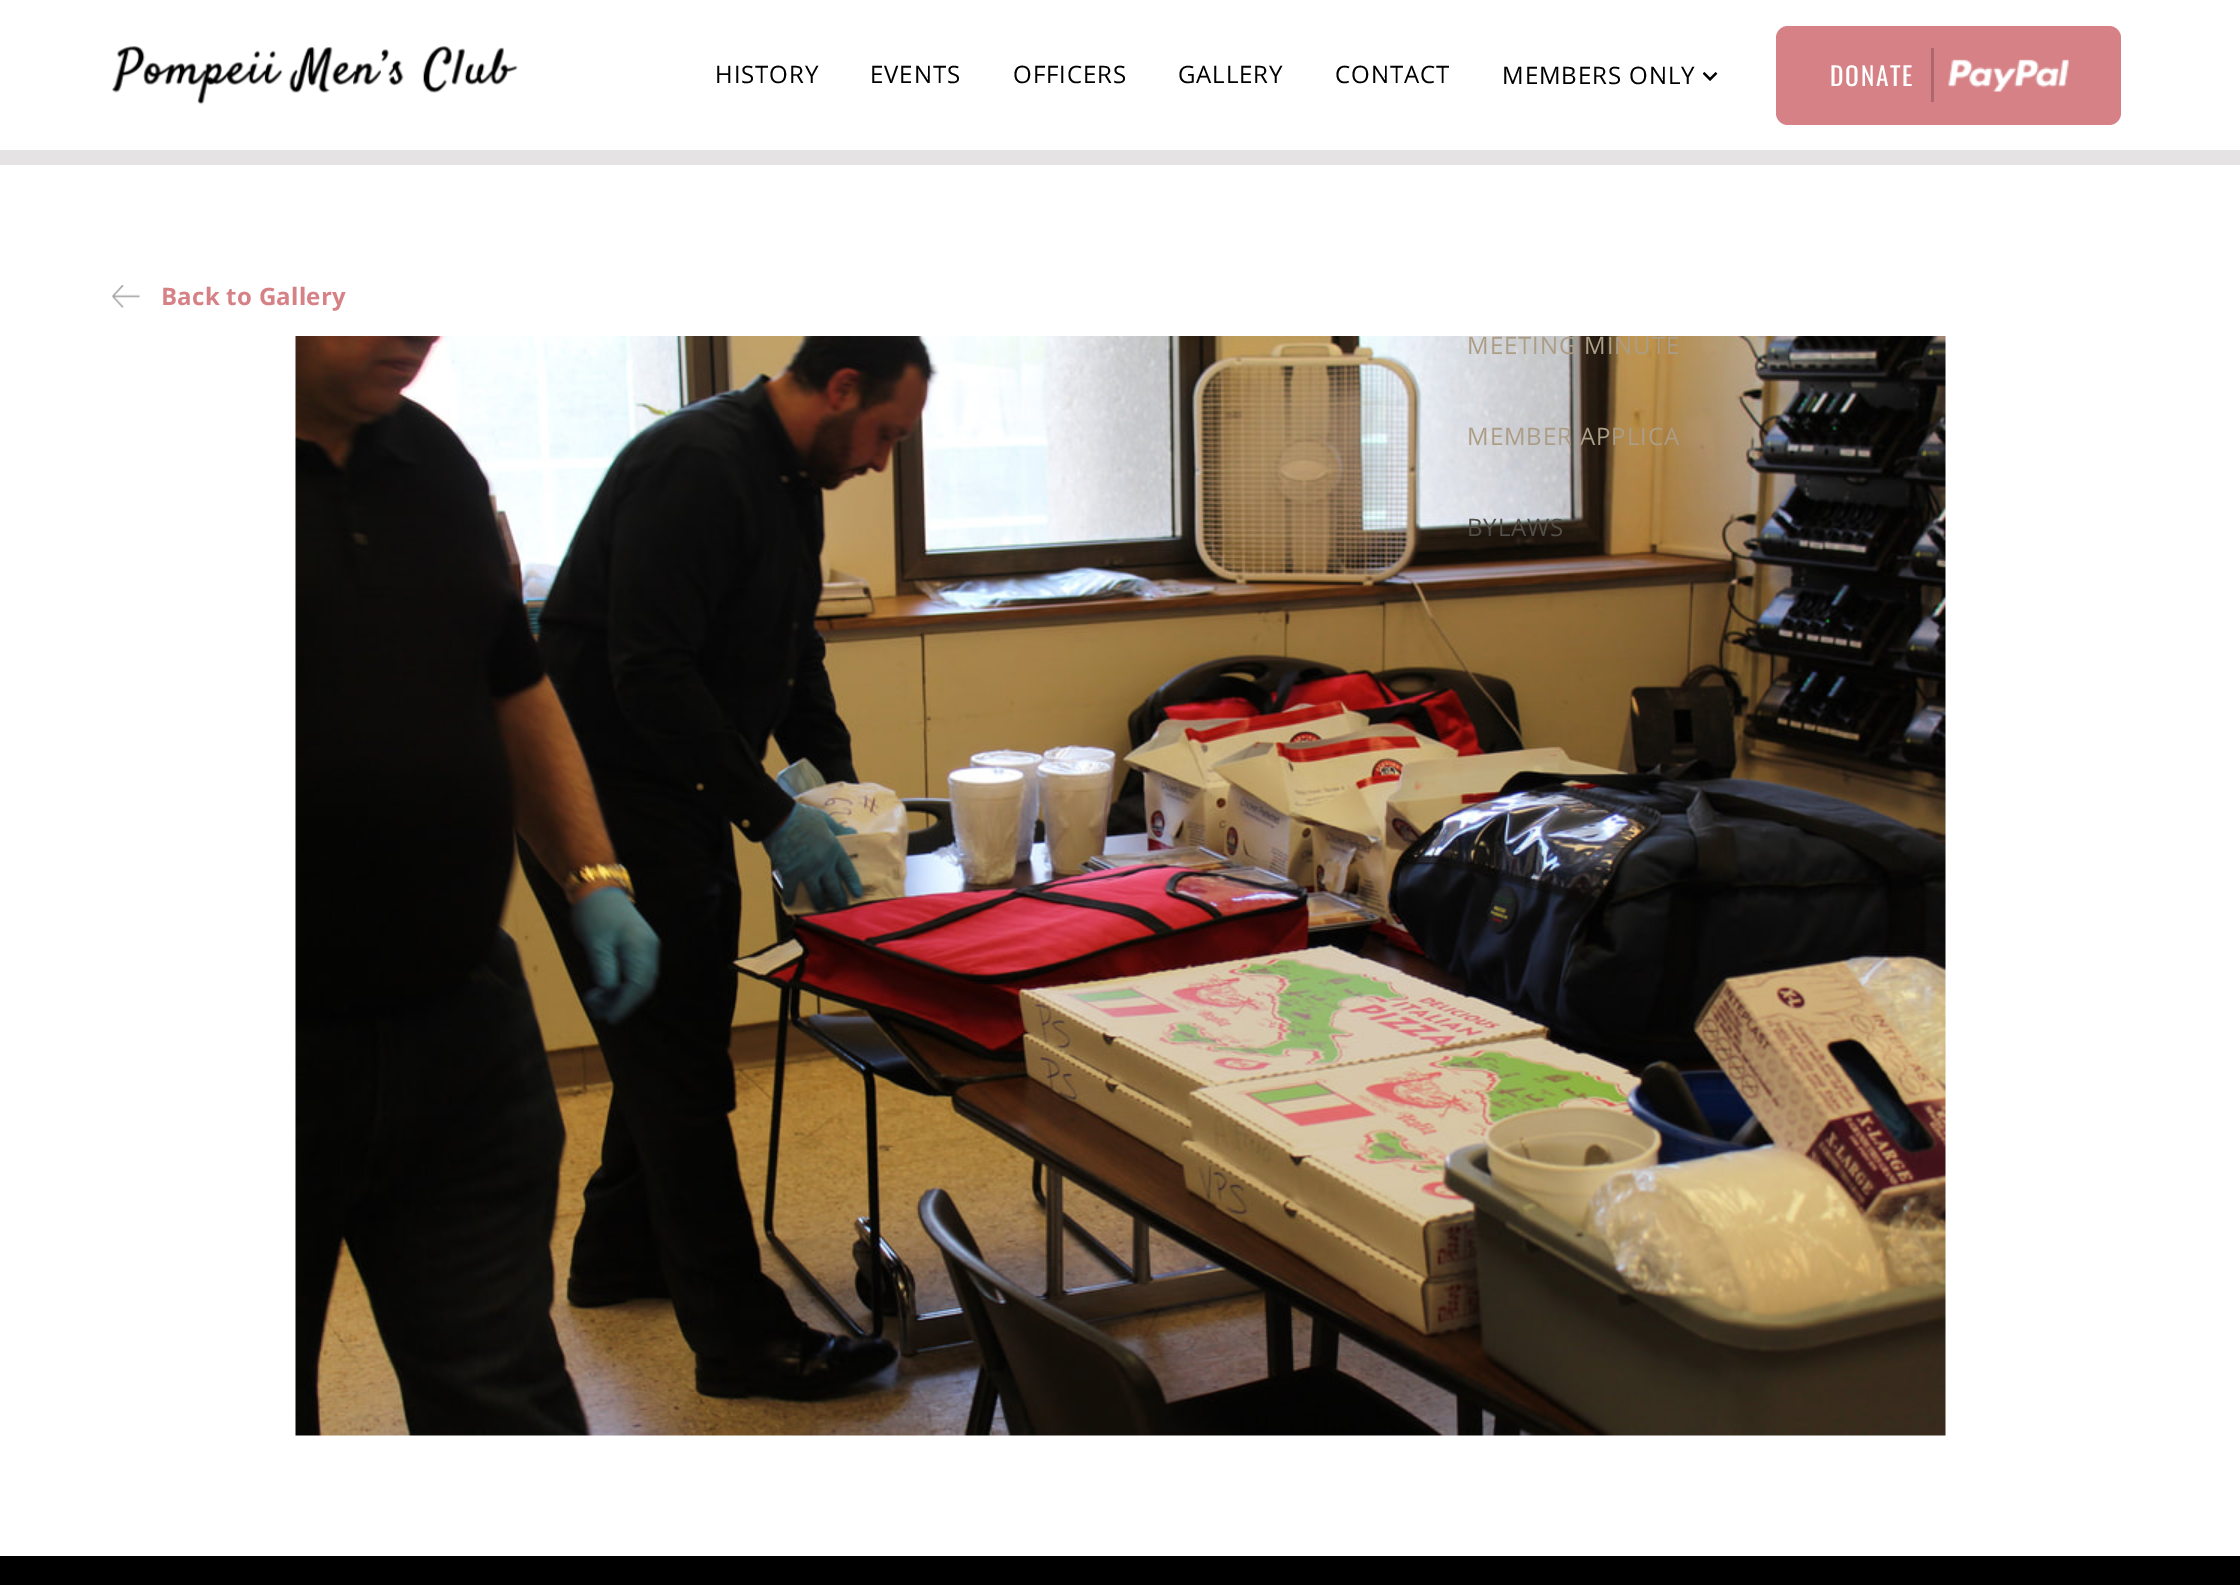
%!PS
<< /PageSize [2240 1585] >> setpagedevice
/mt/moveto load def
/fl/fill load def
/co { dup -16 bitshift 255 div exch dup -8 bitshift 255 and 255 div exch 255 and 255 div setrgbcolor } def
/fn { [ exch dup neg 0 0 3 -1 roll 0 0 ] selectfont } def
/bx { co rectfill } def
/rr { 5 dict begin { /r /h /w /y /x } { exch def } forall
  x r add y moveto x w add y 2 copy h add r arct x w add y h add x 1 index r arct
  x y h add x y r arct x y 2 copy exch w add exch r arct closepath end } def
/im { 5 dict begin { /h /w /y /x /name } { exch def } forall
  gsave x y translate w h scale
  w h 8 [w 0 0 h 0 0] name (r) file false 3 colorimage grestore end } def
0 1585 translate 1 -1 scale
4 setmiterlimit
0 0 2240 1585 16#FFFFFF bx
0 150 2240 15 16#E5E3E3 bx
(media/1.raw) 112 285 28 23 im
(media/2.raw) 295 336 1651 1100 im
(media/3.raw) 112 46 406 59 im
(media/4.raw) 1703 72 15 9 im
16#D68186 co
1776 26 345 99 12 rr fl
1931 48 3 54 16#AC686C bx
(media/5.raw) 1948 59 121 33 im
0 1556 2240 29 16#000000 bx
/OpenSans-Bold 24 fn
16#D68186 co
161 305 mt .25 0 (Back to Gallery) ashow
/OpenSans-Regular 24 fn
16#000000 co
715 83 mt .9 0 (HISTORY) ashow
870 83 mt .9 0 (EVENTS) ashow
1013 83 mt .9 0 (OFFICERS) ashow
1178 83 mt .9 0 (GALLERY) ashow
1335 83 mt .9 0 (CONTACT) ashow
1502 84 mt .9 0 (MEMBERS ONLY) ashow
16#AC9D86 co
1467 354 mt .9 0 (MEETING MINUTE) ashow
1467 445 mt .9 0 (MEMBER APPLICA) ashow
16#524E48 co
1467 536 mt .9 0 (BYLAWS) ashow
/Oswald-Regular 25.5 fn
16#FFFFFF co
1830 86 mt 1.75 0 (DONATE) ashow
showpage
